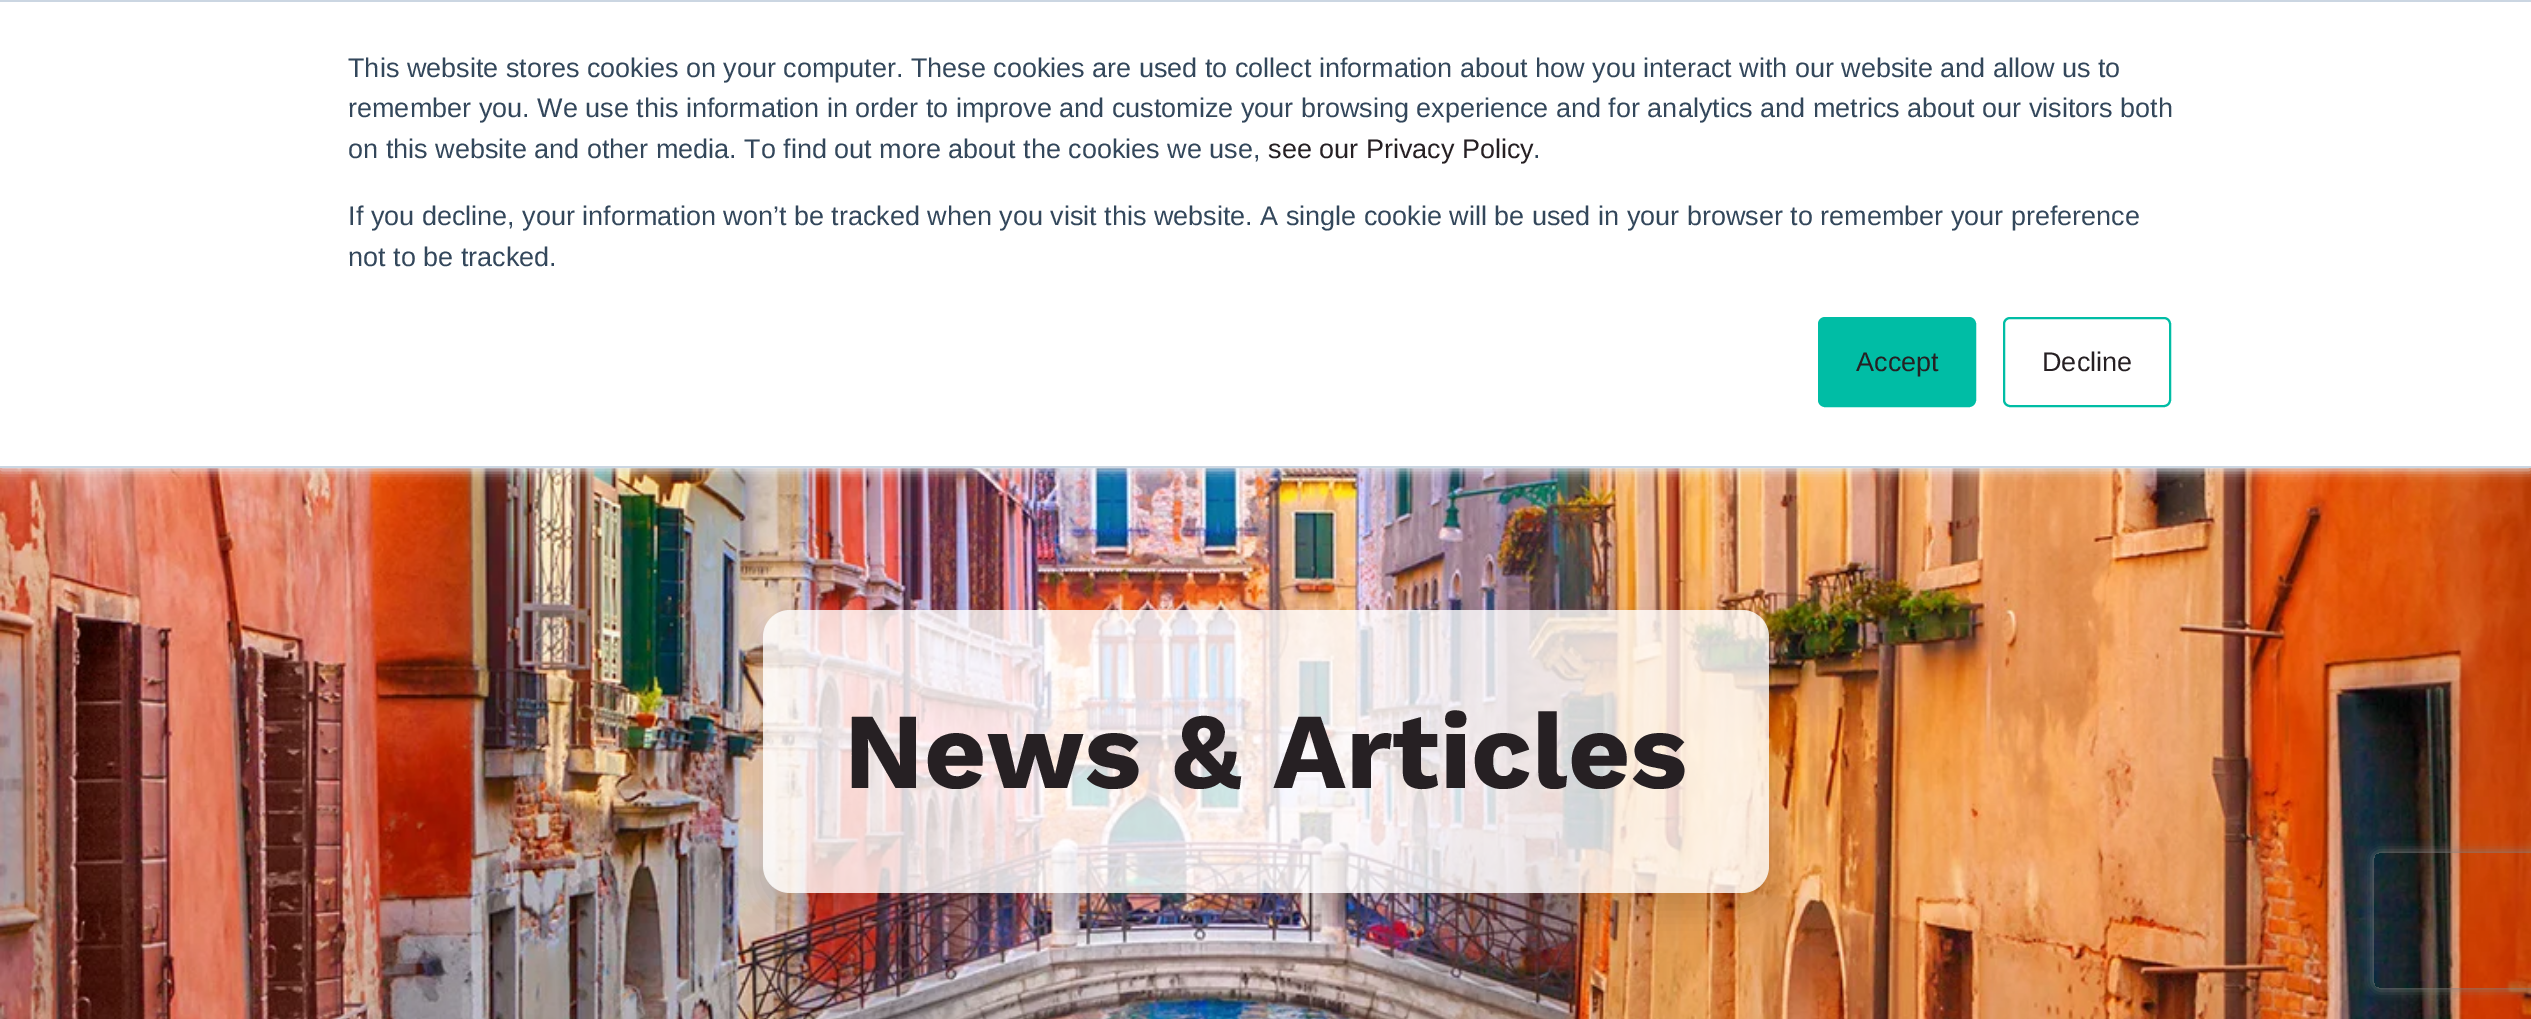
%!PS
<< /PageSize [2531 1019] /PageUsesTransparency true >> setpagedevice
/mt/moveto load def
/li/lineto load def
/ct/curveto load def
/cp/closepath load def
/fl/fill load def
/st/stroke load def
/gs/gsave load def
/gr/grestore load def
/lw/setlinewidth load def
/co { dup -16 bitshift 255 div exch dup -8 bitshift 255 and 255 div exch 255 and 255 div setrgbcolor } def
/fn { [ exch dup neg 0 0 3 -1 roll 0 0 ] selectfont } def
/tx { co fn moveto show } def
/bx { co rectfill } def
/al { dup .setfillconstantalpha .setstrokeconstantalpha } def
/rr { 5 dict begin { /r /h /w /y /x } { exch def } forall
  x r add y moveto x w add y 2 copy h add r arct x w add y h add x 1 index r arct
  x y h add x y r arct x y 2 copy exch w add exch r arct closepath end } def
/sh { 12 dict begin { /a /b /q /h /w /y /x } { exch def } forall gsave /was 0 def
  9 -2 -9 { dup b mul 4 div /e exch def 1 sub .425 mul 2.718 exch exp 1 add a .99 .min exch div /now exch def
    1 1 now sub 1 was sub div sub al /was now def
    w h .min e 2 mul add 0 gt { x e sub y e sub w e 2 mul add h e 2 mul add
      q e add b .6 mul add w h .min 2 div e add .min 0 .max rr fill } if } for grestore end } def
/im { 5 dict begin { /h /w /y /x /name } { exch def } forall
  gsave x y translate w h scale
  w h 8 [w 0 0 h 0 0] name (r) file false 3 colorimage grestore end } def
0 .pushpdf14devicefilter
0 1019 translate 1 -1 scale
4 setmiterlimit
0 0 2531 1019 16#FFFFFF bx
(media/1.raw) 0 468 2531 551 im
16#EAF0F6 co
0 2 2531 468 0 5.5 1 sh
0 2 2531 464 16#FFFFFF bx
0 0 2531 2 16#CBD6E2 bx
0 466 2531 2 16#CBD6E2 bx
16#00BDA5 co
1819 318 156 88 6 rr gs fl gr
2 lw
st
2004 318 166 88 6 rr st
gs
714 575 mt 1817 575 li 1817 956 li 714 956 li cp 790 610 mt 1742 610 li 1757 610 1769 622 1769 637 ct 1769 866 li 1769 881 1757 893 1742 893 ct 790 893 li 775 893 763 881 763 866 ct 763 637 li 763 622 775 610 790 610 ct cp eoclip newpath
16#000000 co
756 617 1019 297 34 13.5 .12 sh
gr
0.8 al
16#FFFFFF co
763 610 1006 283 27 rr fl
gs
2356 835 mt 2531 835 li 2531 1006 li 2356 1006 li cp 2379 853 mt 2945 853 li 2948 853 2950 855 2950 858 ct 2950 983 li 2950 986 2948 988 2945 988 ct 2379 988 li 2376 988 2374 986 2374 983 ct 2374 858 li 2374 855 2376 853 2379 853 ct cp eoclip newpath
1 al
16#808080 co
2374 853 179 135 5 5.5 1 sh
gr
1 al
(This website stores cookies on your computer. These cookies are used to collect information about how you interact with our website and allow us to) 348 77 /LiberationSans-Regular 27 16#33475B tx
(remember you. We use this information in order to improve and customize your browsing experience and for analytics and metrics about our visitors both) 348 117 /LiberationSans-Regular 27 16#33475B tx
(on this website and other media. To find out more about the cookies we use,) 348 158 /LiberationSans-Regular 27 16#33475B tx
(see our Privacy Policy) 1268 158 /LiberationSans-Regular 27 16#262023 tx
(.) 1533 158 /LiberationSans-Regular 27 16#33475B tx
(If you decline, your information won’t be tracked when you visit this website. A single cookie will be used in your browser to remember your preference) 348 225 /LiberationSans-Regular 27 16#33475B tx
(not to be tracked.) 348 266 /LiberationSans-Regular 27 16#33475B tx
(Accept) 1856 371 /LiberationSans-Regular 27 16#262023 tx
(Decline) 2042 371 /LiberationSans-Regular 27 16#262023 tx
(News & Articles) 844 788 /WorkSans-Bold 108 16#262023 tx
.poppdf14devicefilter showpage
